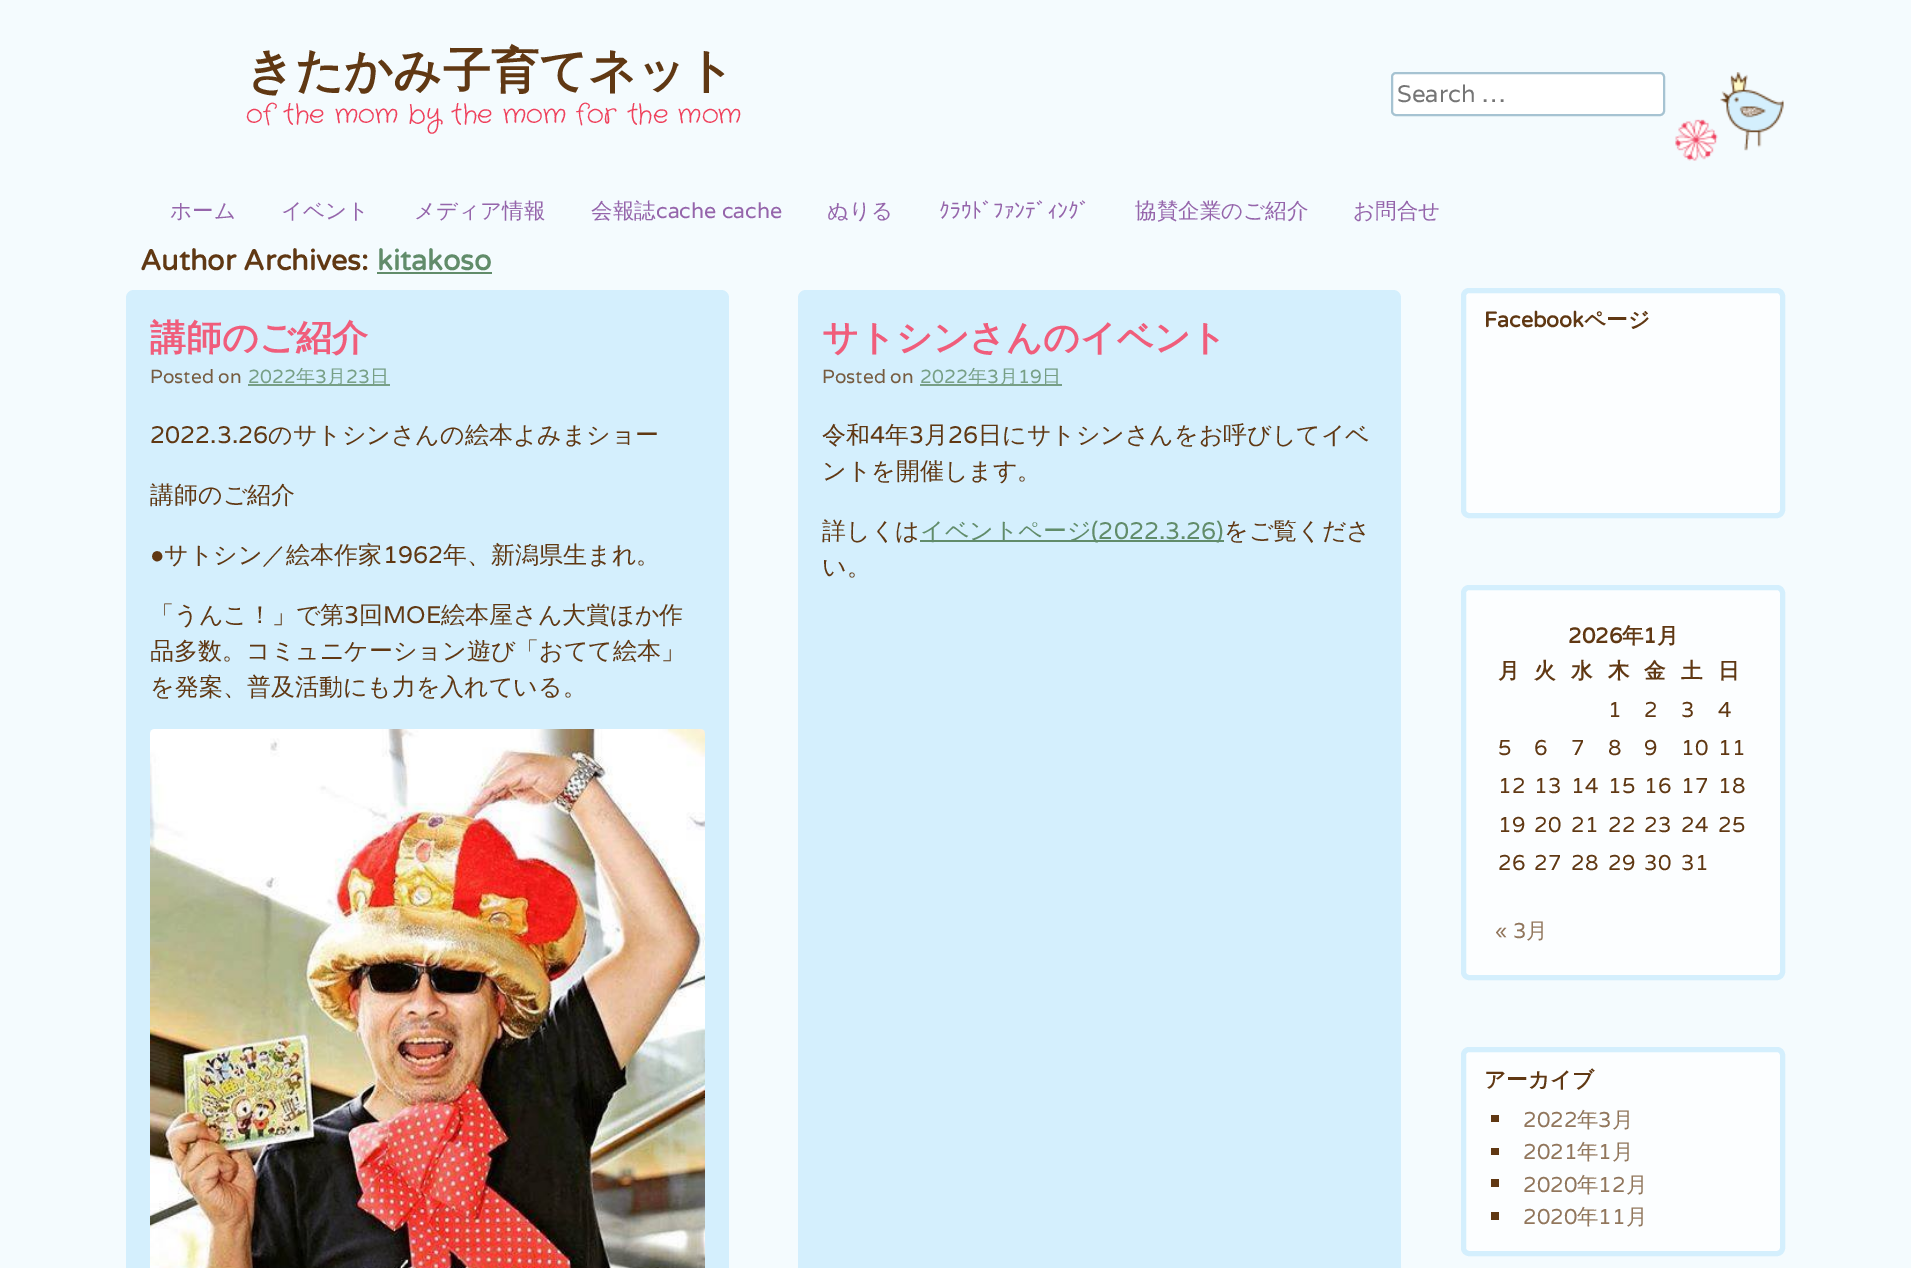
%!PS
<< /PageSize [1911 1268] >> setpagedevice
/fl/fill load def
/st/stroke load def
/gs/gsave load def
/gr/grestore load def
/lw/setlinewidth load def
/co { dup -16 bitshift 255 div exch dup -8 bitshift 255 and 255 div exch 255 and 255 div setrgbcolor } def
/fn { [ exch dup neg 0 0 3 -1 roll 0 0 ] selectfont } def
/tx { co fn moveto show } def
/bx { co rectfill } def
/rr { 5 dict begin { /r /h /w /y /x } { exch def } forall
  x r add y moveto x w add y 2 copy h add r arct x w add y h add x 1 index r arct
  x y h add x y r arct x y 2 copy exch w add exch r arct closepath end } def
/im { 5 dict begin { /h /w /y /x /name } { exch def } forall
  gsave x y translate w h scale
  w h 8 [w 0 0 h 0 0] name (r) file false 3 colorimage grestore end } def
0 1268 translate 1 -1 scale
4 setmiterlimit
0 0 1911 1268 16#F4FBFE bx
(media/1.raw) 1675 72 109 89 im
16#FFFFFF co
1392 73 272 42 4 rr gs fl gr
16#A6C3D2 co
2 lw
st
377 272 115 2 16#618C6A bx
16#D4EFFD co
126 290 603 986 8 rr fl
248 384 142 2 16#779F86 bx
(media/2.raw) 150 729 555 539 im
16#D4EFFD co
798 290 603 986 8 rr fl
920 384 142 2 16#779F86 bx
920 540 304 2 16#618C6A bx
16#FCFEFF co
1463.5 290.5 319 225 5.5 rr gs fl gr
16#D4EFFD co
5 lw
st
16#FCFEFF co
1463.5 587.5 319 390 5.5 rr gs fl gr
16#D4EFFD co
st
16#FCFEFF co
1463.5 1049.5 319 204 5.5 rr gs fl gr
16#D4EFFD co
st
1491 1115 8 7 16#603813 bx
1491 1148 8 7 16#603813 bx
1491 1179 8 8 16#603813 bx
1491 1212 8 8 16#603813 bx
(きたかみ子育てネット) 246 87 /WenQuanYiZenHei-Bold 48 16#603813 tx
(of the mom by the mom for the mom) 246 122 /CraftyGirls-Regular 26.4 16#EF415C tx
(Search …) 1397 102 /Varela-Regular 24 16#757575 tx
(ホーム) 170 218 /WenQuanYiZenHei-Medium 21.5 16#9565AB tx
(イベント) 281 218 /WenQuanYiZenHei-Medium 21.5 16#9565AB tx
(メディア情報) 414 218 /WenQuanYiZenHei-Medium 21.5 16#9565AB tx
(会報誌) 591 218 /WenQuanYiZenHei-Medium 21.5 16#9565AB tx
(cache cache) 656 218 /Varela-Regular 21.5 16#9565AB tx
(ぬりる) 827 218 /WenQuanYiZenHei-Medium 21.5 16#9565AB tx
(ｸﾗｳﾄﾞﾌｧﾝﾃﾞｨﾝｸﾞ) 939 218 /IPAPGothic-Regular 21.5 16#9565AB tx
(協賛企業のご紹介) 1135 218 /WenQuanYiZenHei-Medium 21.5 16#9565AB tx
(お問合せ) 1353 218 /WenQuanYiZenHei-Medium 21.5 16#9565AB tx
(Author Archives:) 140 270 /VarelaRound-Bold 28.75 16#603813 tx
(kitakoso) 377 270 /VarelaRound-Bold 28.75 16#618C6A tx
(講師のご紹介) 150 350 /WenQuanYiZenHei-Bold 36 16#F05D7B tx
(Posted on) 150 383 /Varela-Regular 19 16#765B3F tx
(2022) 248 383 /Varela-Regular 19 16#779F86 tx
(年) 296 383 /WenQuanYiZenHei-Medium 19 16#779F86 tx
(3) 315 383 /Varela-Regular 19 16#779F86 tx
(月) 327 383 /WenQuanYiZenHei-Medium 19 16#779F86 tx
(23) 346 383 /Varela-Regular 19 16#779F86 tx
(日) 370 383 /WenQuanYiZenHei-Medium 19 16#779F86 tx
(2022.3.26) 150 443 /Varela-Regular 24 16#603813 tx
(のサトシンさんの絵本よみまショー) 268 443 /WenQuanYiZenHei-Medium 24 16#603813 tx
(講師のご紹介) 150 503 /WenQuanYiZenHei-Medium 24 16#603813 tx
(●) 150 563 /LiberationSans-Regular 24 16#603813 tx
(サトシン／絵本作家) 164 563 /WenQuanYiZenHei-Medium 24 16#603813 tx
(1962) 383 563 /Varela-Regular 24 16#603813 tx
(年、新潟県生まれ。) 443 563 /WenQuanYiZenHei-Medium 24 16#603813 tx
(「うんこ！」で第) 150 623 /WenQuanYiZenHei-Medium 24 16#603813 tx
(3) 344 623 /Varela-Regular 24 16#603813 tx
(回) 359 623 /WenQuanYiZenHei-Medium 24 16#603813 tx
(MOE) 383 623 /Varela-Regular 24 16#603813 tx
(絵本屋さん大賞ほか作) 441 623 /WenQuanYiZenHei-Medium 24 16#603813 tx
(品多数。コミュニケーション遊び「おてて絵本」) 150 659 /WenQuanYiZenHei-Medium 24 16#603813 tx
(を発案、普及活動にも力を入れている。) 150 695 /WenQuanYiZenHei-Medium 24 16#603813 tx
(サトシンさんのイベント) 822 350 /WenQuanYiZenHei-Bold 36 16#F05D7B tx
(Posted on) 822 383 /Varela-Regular 19 16#765B3F tx
(2022) 920 383 /Varela-Regular 19 16#779F86 tx
(年) 968 383 /WenQuanYiZenHei-Medium 19 16#779F86 tx
(3) 987 383 /Varela-Regular 19 16#779F86 tx
(月) 999 383 /WenQuanYiZenHei-Medium 19 16#779F86 tx
(19) 1018 383 /Varela-Regular 19 16#779F86 tx
(日) 1042 383 /WenQuanYiZenHei-Medium 19 16#779F86 tx
(令和) 822 443 /WenQuanYiZenHei-Medium 24 16#603813 tx
(4) 870 443 /Varela-Regular 24 16#603813 tx
(年) 885 443 /WenQuanYiZenHei-Medium 24 16#603813 tx
(3) 909 443 /Varela-Regular 24 16#603813 tx
(月) 924 443 /WenQuanYiZenHei-Medium 24 16#603813 tx
(26) 948 443 /Varela-Regular 24 16#603813 tx
(日にサトシンさんをお呼びしてイベ) 978 443 /WenQuanYiZenHei-Medium 24 16#603813 tx
(ントを開催します。) 822 479 /WenQuanYiZenHei-Medium 24 16#603813 tx
(詳しくは) 822 539 /WenQuanYiZenHei-Medium 24 16#603813 tx
(イベントページ) 920 539 /WenQuanYiZenHei-Medium 24 16#618C6A tx
(\(2022.3.26\)) 1091 539 /Varela-Regular 24 16#618C6A tx
(をご覧くださ) 1224 539 /WenQuanYiZenHei-Medium 24 16#603813 tx
(い。) 822 575 /WenQuanYiZenHei-Medium 24 16#603813 tx
(Facebook) 1484 327 /VarelaRound-Bold 21.5 16#603813 tx
(ページ) 1584 327 /WenQuanYiZenHei-Bold 21.5 16#603813 tx
(2026) 1568 643 /Varela-Bold 21.5 16#603813 tx
(年) 1622 643 /WenQuanYiZenHei-Bold 21.5 16#603813 tx
(1) 1643 643 /Varela-Bold 21.5 16#603813 tx
(月) 1657 643 /WenQuanYiZenHei-Bold 21.5 16#603813 tx
(月) 1498 678 /WenQuanYiZenHei-Bold 21.5 16#603813 tx
(火) 1534 678 /WenQuanYiZenHei-Bold 21.5 16#603813 tx
(水) 1571 678 /WenQuanYiZenHei-Bold 21.5 16#603813 tx
(木) 1608 678 /WenQuanYiZenHei-Bold 21.5 16#603813 tx
(金) 1644 678 /WenQuanYiZenHei-Bold 21.5 16#603813 tx
(土) 1681 678 /WenQuanYiZenHei-Bold 21.5 16#603813 tx
(日) 1718 678 /WenQuanYiZenHei-Bold 21.5 16#603813 tx
(1) 1608 717 /Varela-Regular 21.5 16#603813 tx
(2) 1644 717 /Varela-Regular 21.5 16#603813 tx
(3) 1681 717 /Varela-Regular 21.5 16#603813 tx
(4) 1718 717 /Varela-Regular 21.5 16#603813 tx
(5) 1498 755 /Varela-Regular 21.5 16#603813 tx
(6) 1534 755 /Varela-Regular 21.5 16#603813 tx
(7) 1571 755 /Varela-Regular 21.5 16#603813 tx
(8) 1608 755 /Varela-Regular 21.5 16#603813 tx
(9) 1644 755 /Varela-Regular 21.5 16#603813 tx
(10) 1681 755 /Varela-Regular 21.5 16#603813 tx
(11) 1718 755 /Varela-Regular 21.5 16#603813 tx
(12) 1498 793 /Varela-Regular 21.5 16#603813 tx
(13) 1534 793 /Varela-Regular 21.5 16#603813 tx
(14) 1571 793 /Varela-Regular 21.5 16#603813 tx
(15) 1608 793 /Varela-Regular 21.5 16#603813 tx
(16) 1644 793 /Varela-Regular 21.5 16#603813 tx
(17) 1681 793 /Varela-Regular 21.5 16#603813 tx
(18) 1718 793 /Varela-Regular 21.5 16#603813 tx
(19) 1498 832 /Varela-Regular 21.5 16#603813 tx
(20) 1534 832 /Varela-Regular 21.5 16#603813 tx
(21) 1571 832 /Varela-Regular 21.5 16#603813 tx
(22) 1608 832 /Varela-Regular 21.5 16#603813 tx
(23) 1644 832 /Varela-Regular 21.5 16#603813 tx
(24) 1681 832 /Varela-Regular 21.5 16#603813 tx
(25) 1718 832 /Varela-Regular 21.5 16#603813 tx
(26) 1498 870 /Varela-Regular 21.5 16#603813 tx
(27) 1534 870 /Varela-Regular 21.5 16#603813 tx
(28) 1571 870 /Varela-Regular 21.5 16#603813 tx
(29) 1608 870 /Varela-Regular 21.5 16#603813 tx
(30) 1644 870 /Varela-Regular 21.5 16#603813 tx
(31) 1681 870 /Varela-Regular 21.5 16#603813 tx
(« 3) 1495 938 /Varela-Regular 21.5 16#91765C tx
(月) 1526 938 /WenQuanYiZenHei-Medium 21.5 16#91765C tx
(アーカイブ) 1484 1087 /WenQuanYiZenHei-Bold 21.5 16#603813 tx
(2022) 1523 1127 /Varela-Regular 21.5 16#91765C tx
(年) 1577 1127 /WenQuanYiZenHei-Medium 21.5 16#91765C tx
(3) 1598 1127 /Varela-Regular 21.5 16#91765C tx
(月) 1612 1127 /WenQuanYiZenHei-Medium 21.5 16#91765C tx
(2021) 1523 1159 /Varela-Regular 21.5 16#91765C tx
(年) 1577 1159 /WenQuanYiZenHei-Medium 21.5 16#91765C tx
(1) 1598 1159 /Varela-Regular 21.5 16#91765C tx
(月) 1612 1159 /WenQuanYiZenHei-Medium 21.5 16#91765C tx
(2020) 1523 1192 /Varela-Regular 21.5 16#91765C tx
(年) 1577 1192 /WenQuanYiZenHei-Medium 21.5 16#91765C tx
(12) 1598 1192 /Varela-Regular 21.5 16#91765C tx
(月) 1626 1192 /WenQuanYiZenHei-Medium 21.5 16#91765C tx
(2020) 1523 1224 /Varela-Regular 21.5 16#91765C tx
(年) 1577 1224 /WenQuanYiZenHei-Medium 21.5 16#91765C tx
(11) 1598 1224 /Varela-Regular 21.5 16#91765C tx
(月) 1626 1224 /WenQuanYiZenHei-Medium 21.5 16#91765C tx
showpage
